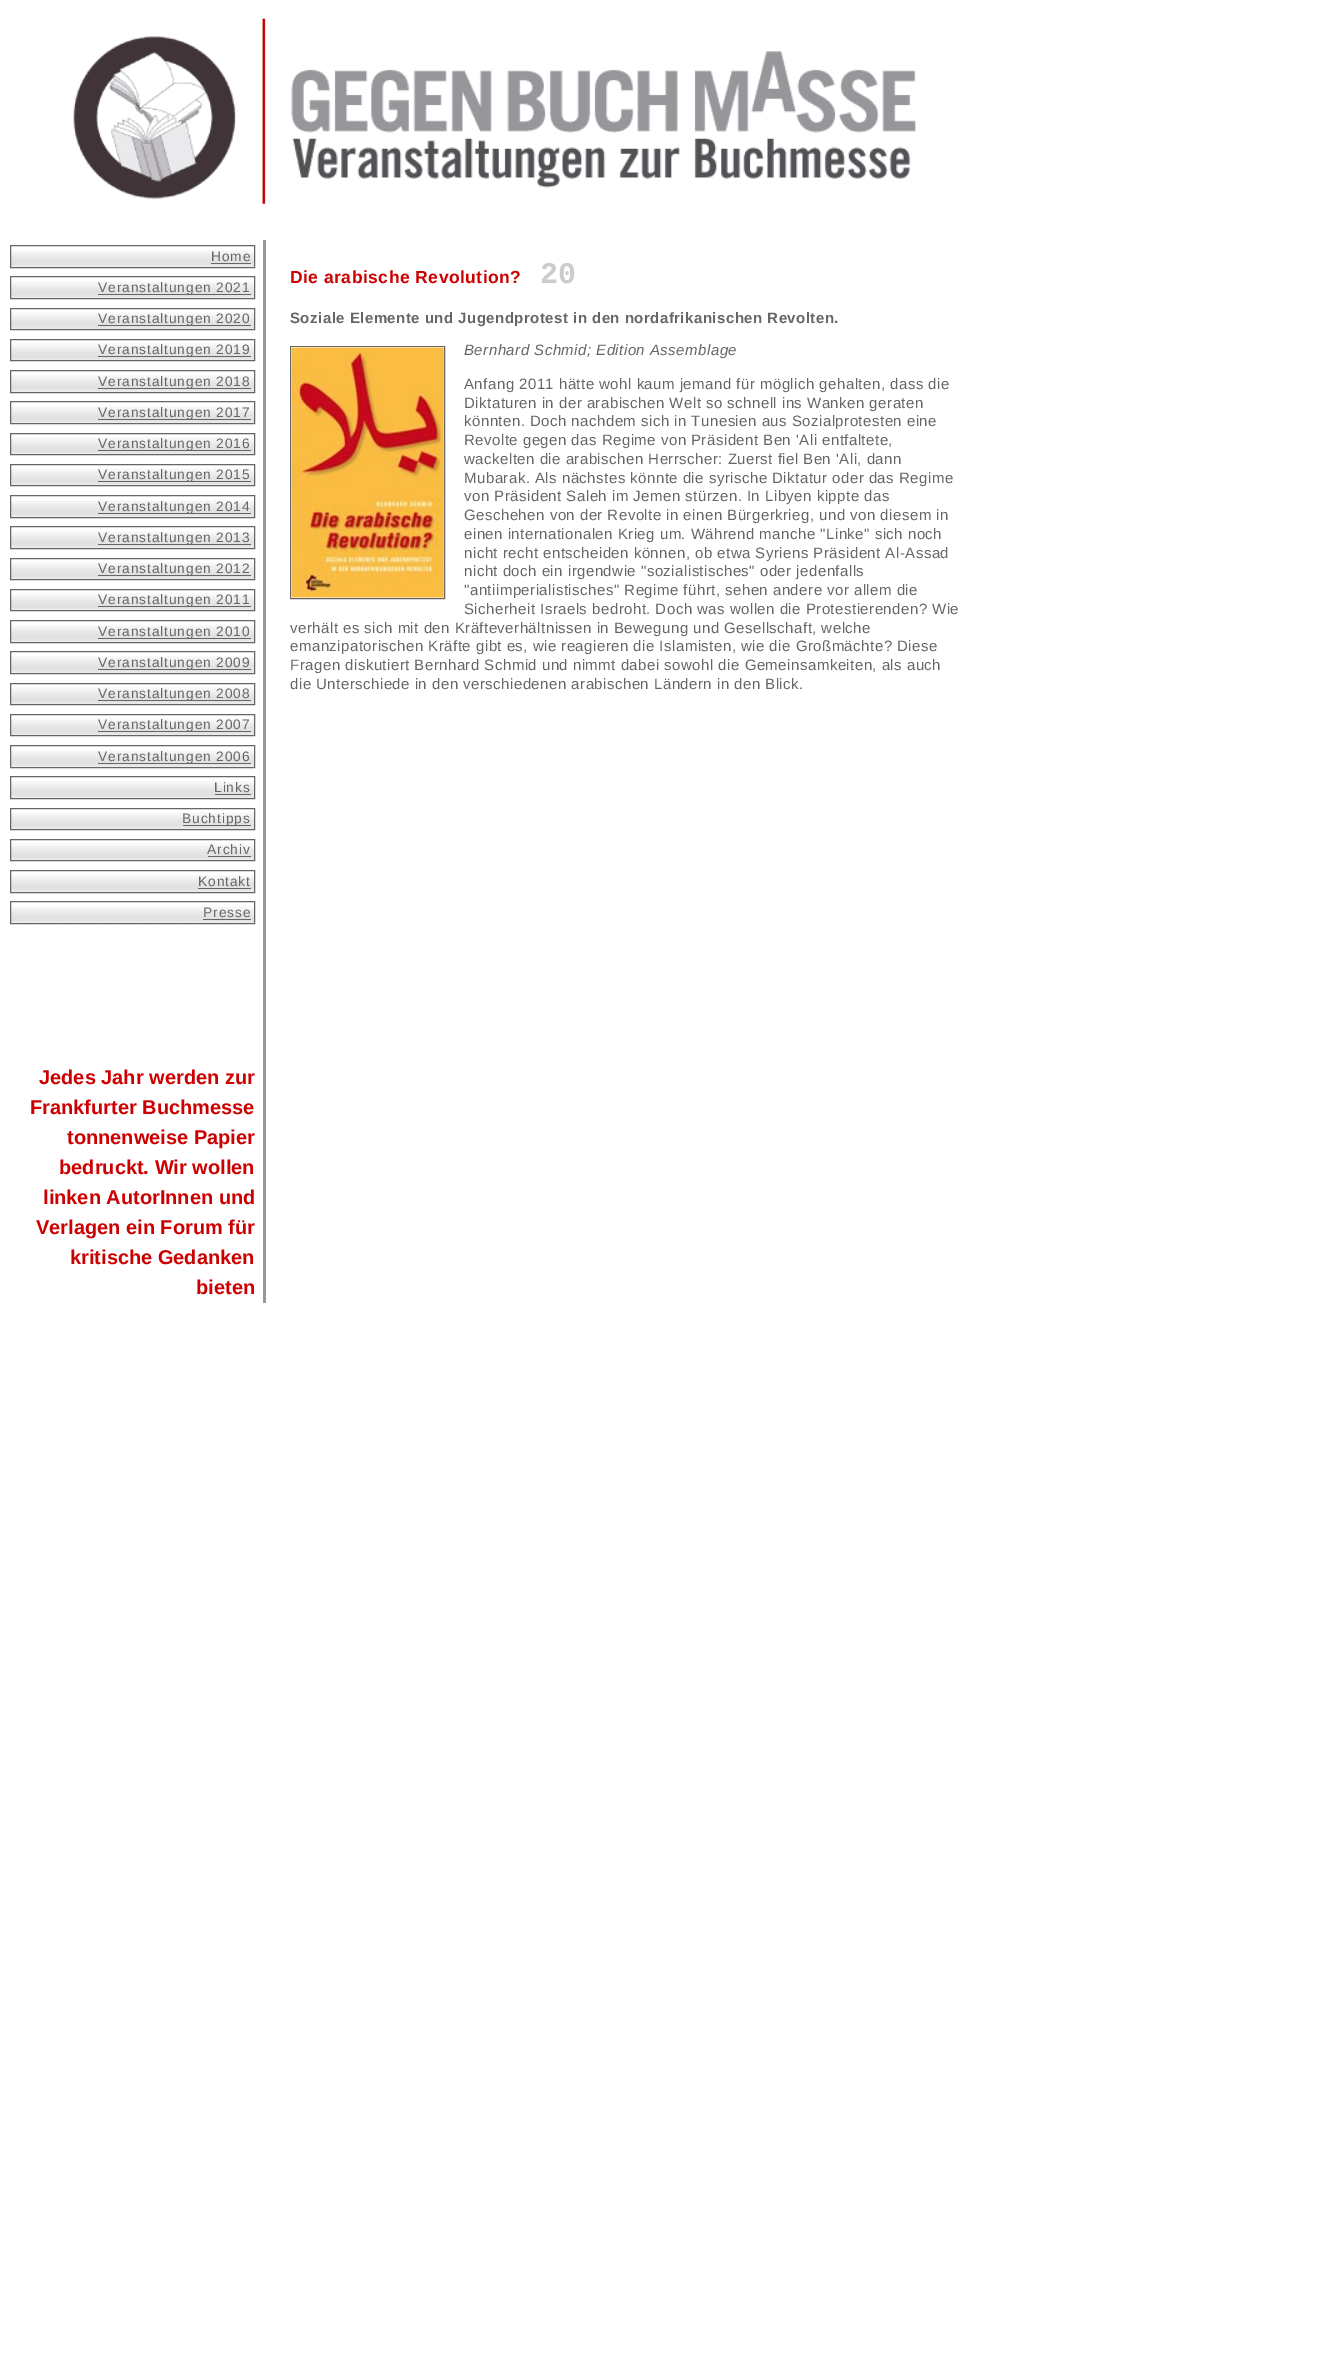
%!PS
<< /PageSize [1343 2369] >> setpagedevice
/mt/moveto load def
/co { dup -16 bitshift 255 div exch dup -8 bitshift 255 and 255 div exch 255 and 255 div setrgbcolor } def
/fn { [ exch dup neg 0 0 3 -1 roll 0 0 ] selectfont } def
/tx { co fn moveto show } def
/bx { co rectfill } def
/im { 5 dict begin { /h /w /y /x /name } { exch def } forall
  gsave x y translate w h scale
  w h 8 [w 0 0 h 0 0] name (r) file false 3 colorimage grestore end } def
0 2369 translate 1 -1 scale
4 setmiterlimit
0 0 1343 2369 16#FFFFFF bx
(media/1.raw) 73 18 844 186 im
(media/2.raw) 11 250 243 17 im
16#666666 co
10.5 245.5 244 22 rectstroke
211 263 40 1 16#666666 bx
(media/3.raw) 11 281 243 17 im
10.5 276.5 244 22 rectstroke
98 294 153 1 16#666666 bx
(media/4.raw) 11 312 243 17 im
10.5 308.5 244 21 rectstroke
98 325 153 1 16#666666 bx
(media/5.raw) 11 343 243 17 im
10.5 339.5 244 21 rectstroke
98 356 153 1 16#666666 bx
(media/2.raw) 11 375 243 17 im
10.5 370.5 244 22 rectstroke
98 388 153 1 16#666666 bx
(media/3.raw) 11 406 243 17 im
10.5 401.5 244 22 rectstroke
98 419 153 1 16#666666 bx
(media/6.raw) 11 437 243 17 im
10.5 433.5 244 21 rectstroke
98 450 153 1 16#666666 bx
(media/5.raw) 11 468 243 17 im
10.5 464.5 244 21 rectstroke
98 481 153 1 16#666666 bx
(media/2.raw) 11 500 243 17 im
10.5 495.5 244 22 rectstroke
98 513 153 1 16#666666 bx
(media/3.raw) 11 531 243 17 im
10.5 526.5 244 22 rectstroke
98 544 153 1 16#666666 bx
(media/6.raw) 11 562 243 17 im
10.5 558.5 244 21 rectstroke
98 575 153 1 16#666666 bx
(media/5.raw) 11 593 243 17 im
10.5 589.5 244 21 rectstroke
98 606 153 1 16#666666 bx
(media/2.raw) 11 625 243 17 im
10.5 620.5 244 22 rectstroke
98 638 153 1 16#666666 bx
(media/7.raw) 11 656 243 17 im
10.5 651.5 244 22 rectstroke
98 669 153 1 16#666666 bx
(media/8.raw) 11 687 243 17 im
10.5 683.5 244 21 rectstroke
98 700 153 1 16#666666 bx
(media/9.raw) 11 718 243 17 im
10.5 714.5 244 21 rectstroke
98 731 153 1 16#666666 bx
(media/2.raw) 11 750 243 17 im
10.5 745.5 244 22 rectstroke
98 763 153 1 16#666666 bx
(media/3.raw) 11 781 243 17 im
10.5 776.5 244 22 rectstroke
215 794 36 1 16#666666 bx
(media/6.raw) 11 812 243 17 im
10.5 808.5 244 21 rectstroke
183 825 68 1 16#666666 bx
(media/5.raw) 11 843 243 17 im
10.5 839.5 244 21 rectstroke
208 856 43 1 16#666666 bx
(media/2.raw) 11 875 243 17 im
10.5 870.5 244 22 rectstroke
198 888 53 1 16#666666 bx
(media/3.raw) 11 906 243 17 im
10.5 901.5 244 22 rectstroke
203 919 48 1 16#666666 bx
263 240 3 1063 16#97969B bx
16#666666 co
290.5 346.5 154 252 rectstroke
(media/10.raw) 291 347 153 251 im
/LiberationSans-Regular 13.75 fn
211 261 mt .9 0 (Home) ashow
98 292 mt .9 0 (Veranstaltungen 2021) ashow
98 323 mt .9 0 (Veranstaltungen 2020) ashow
98 354 mt .9 0 (Veranstaltungen 2019) ashow
98 386 mt .9 0 (Veranstaltungen 2018) ashow
98 417 mt .9 0 (Veranstaltungen 2017) ashow
98 448 mt .9 0 (Veranstaltungen 2016) ashow
98 479 mt .9 0 (Veranstaltungen 2015) ashow
98 511 mt .9 0 (Veranstaltungen 2014) ashow
98 542 mt .9 0 (Veranstaltungen 2013) ashow
98 573 mt .9 0 (Veranstaltungen 2012) ashow
98 604 mt .9 0 (Veranstaltungen 2011) ashow
98 636 mt .9 0 (Veranstaltungen 2010) ashow
98 667 mt .9 0 (Veranstaltungen 2009) ashow
98 698 mt .9 0 (Veranstaltungen 2008) ashow
98 729 mt .9 0 (Veranstaltungen 2007) ashow
98 761 mt .9 0 (Veranstaltungen 2006) ashow
214 792 mt .9 0 (Links) ashow
182 823 mt .9 0 (Buchtipps) ashow
207 854 mt .9 0 (Archiv) ashow
198 886 mt .9 0 (Kontakt) ashow
203 917 mt .9 0 (Presse) ashow
(Jedes Jahr werden zur) 39 1084 /LiberationSans-Bold 20 16#CC0000 tx
(Frankfurter Buchmesse) 30 1114 /LiberationSans-Bold 20 16#CC0000 tx
(tonnenweise Papier) 67 1144 /LiberationSans-Bold 20 16#CC0000 tx
(bedruckt. Wir wollen) 59 1174 /LiberationSans-Bold 20 16#CC0000 tx
(linken AutorInnen und) 43 1204 /LiberationSans-Bold 20 16#CC0000 tx
(Verlagen ein Forum für) 36 1234 /LiberationSans-Bold 20 16#CC0000 tx
(kritische Gedanken) 70 1264 /LiberationSans-Bold 20 16#CC0000 tx
(bieten) 196 1294 /LiberationSans-Bold 20 16#CC0000 tx
/LiberationSans-Bold 17.5 fn
290 283 mt .47 0 (Die arabische Revolution?) ashow
/LiberationMono-Bold 30 fn
16#CCCCCC co
540 283 mt .47 0 (20) ashow
/LiberationSans-Bold 15 fn
16#666666 co
290 323 mt .47 0 (Soziale Elemente und Jugendprotest in den nordafrikanischen Revolten.) ashow
/LiberationSans-Italic 15 fn
464 355 mt .47 0 (Bernhard Schmid; Edition Assemblage) ashow
/LiberationSans-Regular 15 fn
464 389 mt .47 0 (Anfang 2011 hätte wohl kaum jemand für möglich gehalten, dass die) ashow
464 408 mt .47 0 (Diktaturen in der arabischen Welt so schnell ins Wanken geraten) ashow
464 426 mt .47 0 (könnten. Doch nachdem sich in Tunesien aus Sozialprotesten eine) ashow
464 445 mt .47 0 (Revolte gegen das Regime von Präsident Ben 'Ali entfaltete,) ashow
464 464 mt .47 0 (wackelten die arabischen Herrscher: Zuerst fiel Ben 'Ali, dann) ashow
464 483 mt .47 0 (Mubarak. Als nächstes könnte die syrische Diktatur oder das Regime) ashow
464 501 mt .47 0 (von Präsident Saleh im Jemen stürzen. In Libyen kippte das) ashow
464 520 mt .47 0 (Geschehen von der Revolte in einen Bürgerkrieg, und von diesem in) ashow
464 539 mt .47 0 (einen internationalen Krieg um. Während manche "Linke" sich noch) ashow
464 558 mt .47 0 (nicht recht entscheiden können, ob etwa Syriens Präsident Al-Assad) ashow
464 576 mt .47 0 (nicht doch ein irgendwie "sozialistisches" oder jedenfalls) ashow
464 595 mt .47 0 ("antiimperialistisches" Regime führt, sehen andere vor allem die) ashow
464 614 mt .47 0 (Sicherheit Israels bedroht. Doch was wollen die Protestierenden? Wie) ashow
290 633 mt .47 0 (verhält es sich mit den Kräfteverhältnissen in Bewegung und Gesellschaft, welche) ashow
290 651 mt .47 0 (emanzipatorischen Kräfte gibt es, wie reagieren die Islamisten, wie die Großmächte? Diese) ashow
290 670 mt .47 0 (Fragen diskutiert Bernhard Schmid und nimmt dabei sowohl die Gemeinsamkeiten, als auch) ashow
290 689 mt .47 0 (die Unterschiede in den verschiedenen arabischen Ländern in den Blick.) ashow
showpage
